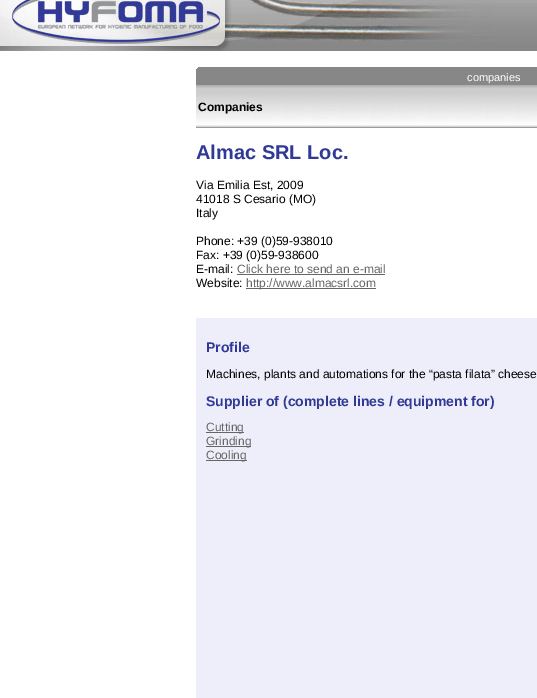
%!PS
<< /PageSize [537 698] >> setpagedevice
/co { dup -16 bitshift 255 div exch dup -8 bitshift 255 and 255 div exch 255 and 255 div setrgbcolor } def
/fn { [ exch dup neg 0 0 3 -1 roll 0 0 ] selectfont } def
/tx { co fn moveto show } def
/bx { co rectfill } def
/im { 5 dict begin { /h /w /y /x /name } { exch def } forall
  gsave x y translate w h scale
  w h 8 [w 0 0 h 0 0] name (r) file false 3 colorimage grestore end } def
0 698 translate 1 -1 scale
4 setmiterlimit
0 0 537 698 16#FFFFFF bx
(media/1.raw) 0 0 537 51 im
(media/2.raw) 196 68 2 17 im
198 67 339 18 16#878787 bx
(media/3.raw) 196 85 341 43 im
237 274 148 1 16#666666 bx
246 288 130 1 16#666666 bx
196 318 341 380 16#EDEEFA bx
206 432 38 1 16#666666 bx
206 446 45 1 16#666666 bx
206 460 41 1 16#666666 bx
(companies) 467 81 /LiberationSans-Regular 11 16#FFFFFF tx
(Companies) 198 111 /LiberationSans-Bold 12 16#000000 tx
(Almac SRL Loc.) 196 159 /LiberationSans-Bold 20 16#303996 tx
(Via Emilia Est, 2009) 196 189 /LiberationSans-Regular 12 16#000000 tx
(41018 S Cesario \(MO\)) 196 203 /LiberationSans-Regular 12 16#000000 tx
(Italy) 196 217 /LiberationSans-Regular 12 16#000000 tx
(Phone: +39 \(0\)59-938010) 196 245 /LiberationSans-Regular 12 16#000000 tx
(Fax: +39 \(0\)59-938600) 196 259 /LiberationSans-Regular 12 16#000000 tx
(E-mail:) 196 273 /LiberationSans-Regular 12 16#000000 tx
(Click here to send an e-mail) 237 273 /LiberationSans-Regular 12 16#666666 tx
(Website:) 196 287 /LiberationSans-Regular 12 16#000000 tx
(http://www.almacsrl.com) 246 287 /LiberationSans-Regular 12 16#666666 tx
(Profile) 206 352 /LiberationSans-Bold 14 16#303996 tx
(Machines, plants and automations for the “pasta filata” cheese) 206 378 /LiberationSans-Regular 12 16#000000 tx
(Supplier of \(complete lines / equipment for\)) 206 406 /LiberationSans-Bold 14 16#303996 tx
(Cutting) 206 431 /LiberationSans-Regular 12 16#666666 tx
(Grinding) 206 445 /LiberationSans-Regular 12 16#666666 tx
(Cooling) 206 459 /LiberationSans-Regular 12 16#666666 tx
showpage
